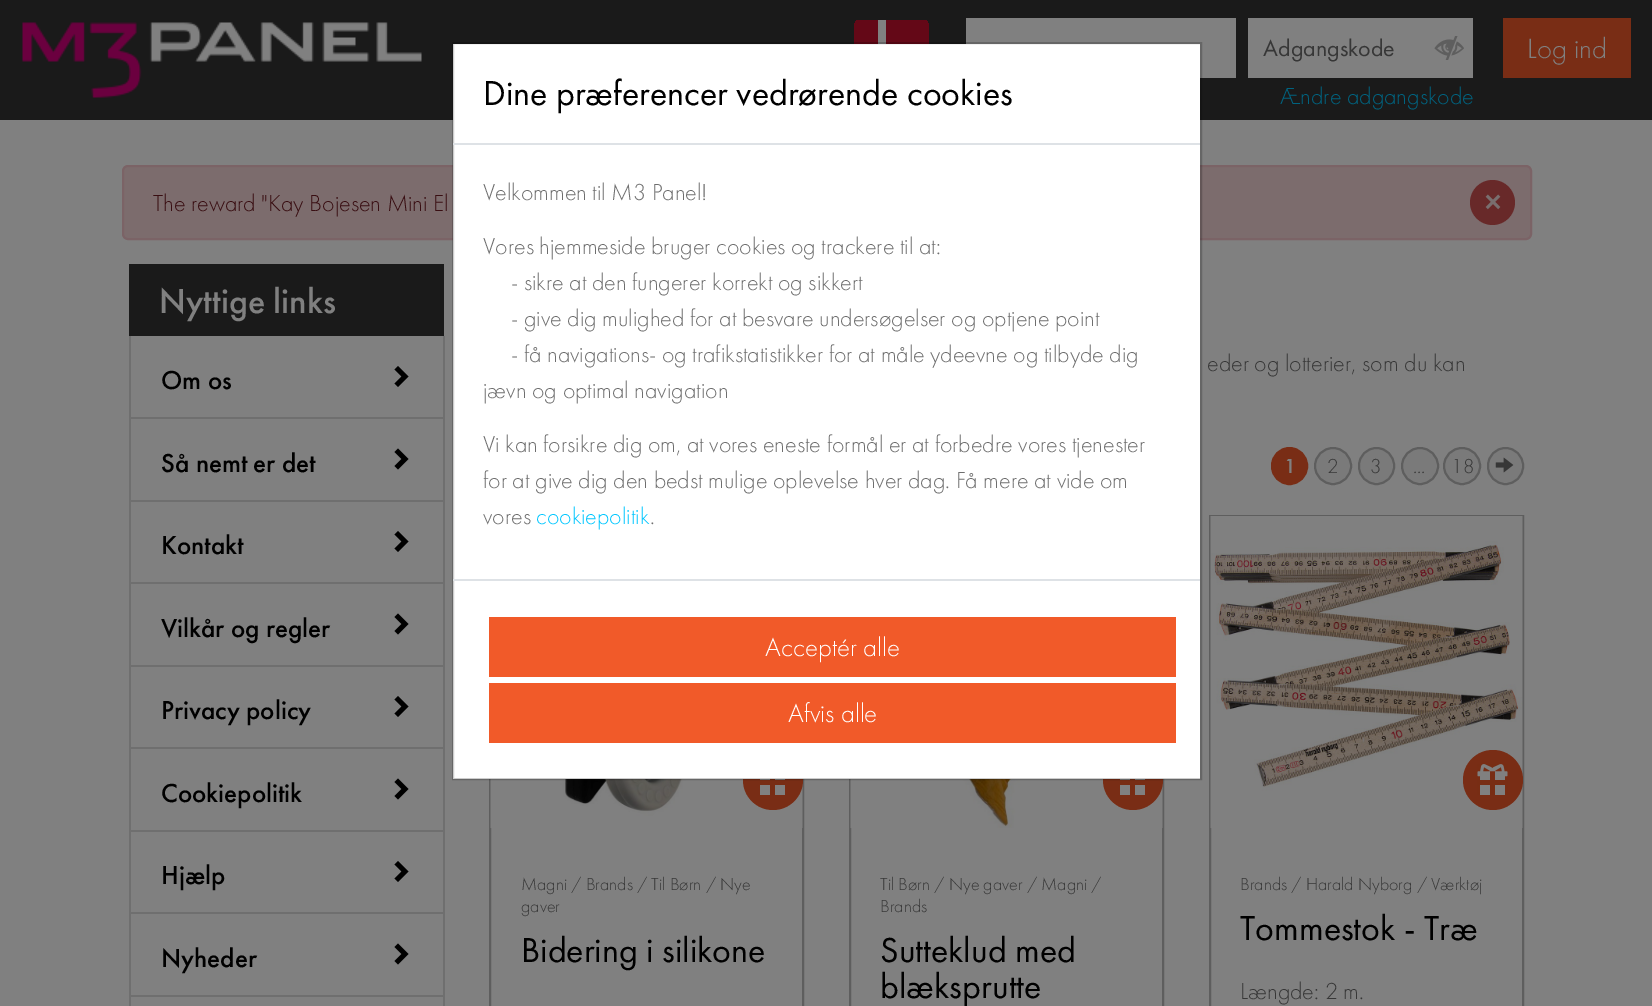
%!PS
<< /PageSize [1652 1006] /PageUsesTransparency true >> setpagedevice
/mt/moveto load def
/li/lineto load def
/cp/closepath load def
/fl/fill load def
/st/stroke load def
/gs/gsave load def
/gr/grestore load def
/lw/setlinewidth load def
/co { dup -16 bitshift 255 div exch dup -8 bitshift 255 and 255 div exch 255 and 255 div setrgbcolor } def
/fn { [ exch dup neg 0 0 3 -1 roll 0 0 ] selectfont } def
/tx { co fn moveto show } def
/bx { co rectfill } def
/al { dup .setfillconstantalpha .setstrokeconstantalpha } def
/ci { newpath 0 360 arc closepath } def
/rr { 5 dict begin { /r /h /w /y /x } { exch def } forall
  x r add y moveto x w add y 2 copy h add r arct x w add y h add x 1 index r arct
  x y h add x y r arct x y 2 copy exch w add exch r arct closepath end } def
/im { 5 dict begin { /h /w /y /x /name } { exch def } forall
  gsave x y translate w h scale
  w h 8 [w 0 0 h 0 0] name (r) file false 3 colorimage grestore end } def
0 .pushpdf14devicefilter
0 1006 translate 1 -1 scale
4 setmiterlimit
0 0 1652 1006 16#808080 bx
0 0 1652 120 16#1A1A1A bx
966 18 270 60 16#808080 bx
16#7C6C6D co
123 166 1408 73 5 rr gs fl gr
16#7B6366 co
2 lw
st
16#5E5E5E co
490 516 313 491 rectstroke
(media/5.raw) 490 779 313 49 im
16#792D15 co
773 780 30 ci fl
16#5E5E5E co
850 516 313 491 rectstroke
(media/6.raw) 850 779 313 49 im
16#792D15 co
1133 780 30 ci fl
453 44 747 735 16#FFFFFF bx
gs
854 18 75 60 9 rr clip newpath
854 20 75 24 16#640817 bx
gr
878 20 8 24 16#808080 bx
(media/4.raw) 760 779 25 16 im
(media/4.raw) 1120 779 25 16 im
0.2 al
16#000000 co
453 43 748 736 rectstroke
1 al
453 143 747 2 16#DEE2E6 bx
453 579 747 2 16#DEE2E6 bx
489 617 687 60 16#F15A29 bx
489 683 687 60 16#F15A29 bx
(media/1.raw) 22 22 400 76 im
1248 18 225 60 16#808080 bx
(media/2.raw) 1434 36 30 24 im
1503 18 128 60 16#792D15 bx
16#682929 co
1492.5 202.5 22.5 ci fl
129 264 315 72 16#1A1A1A bx
443 336 2 165 16#6F6F6F bx
129 417 315 2 16#6F6F6F bx
129 336 2 83 16#6F6F6F bx
16#000000 co
398 387 mt 394.5 383.5 li 401.5 376.5 li 394.5 369.5 li 398 366 li 408.5 376.5 li cp fl
129 500 315 2 16#6F6F6F bx
129 419 2 82 16#6F6F6F bx
16#000000 co
398 469.5 mt 394.5 466 li 401.5 459 li 394.5 452 li 398 448.5 li 408.5 459 li cp fl
443 501 2 165 16#6F6F6F bx
129 582 315 2 16#6F6F6F bx
129 501 2 83 16#6F6F6F bx
16#000000 co
398 552 mt 394.5 548.5 li 401.5 541.5 li 394.5 534.5 li 398 531 li 408.5 541.5 li cp fl
129 665 315 2 16#6F6F6F bx
129 584 2 82 16#6F6F6F bx
16#000000 co
398 634.5 mt 394.5 631 li 401.5 624 li 394.5 617 li 398 613.5 li 408.5 624 li cp fl
443 666 2 165 16#6F6F6F bx
129 747 315 2 16#6F6F6F bx
129 666 2 83 16#6F6F6F bx
16#000000 co
398 717 mt 394.5 713.5 li 401.5 706.5 li 394.5 699.5 li 398 696 li 408.5 706.5 li cp fl
129 830 315 2 16#6F6F6F bx
129 749 2 82 16#6F6F6F bx
16#000000 co
398 799.5 mt 394.5 796 li 401.5 789 li 394.5 782 li 398 778.5 li 408.5 789 li cp fl
443 831 2 165 16#6F6F6F bx
129 912 315 2 16#6F6F6F bx
129 831 2 83 16#6F6F6F bx
16#000000 co
398 882 mt 394.5 878.5 li 401.5 871.5 li 394.5 864.5 li 398 861 li 408.5 871.5 li cp fl
129 995 315 2 16#6F6F6F bx
129 914 2 92 16#6F6F6F bx
16#000000 co
398 964.5 mt 394.5 961 li 401.5 954 li 394.5 947 li 398 943.5 li 408.5 954 li cp fl
443 996 2 10 16#6F6F6F bx
16#792D15 co
1272 448 35 36 17.5 rr gs fl gr
st
16#7A7A7A co
1333 466 18 ci gs fl gr
16#5E5E5E co
st
16#7A7A7A co
1359 448 35 36 17.5 rr gs fl gr
16#5E5E5E co
st
16#7A7A7A co
1420 466 18 ci gs fl gr
16#5E5E5E co
st
16#7A7A7A co
1462 466 18 ci gs fl gr
16#5E5E5E co
st
16#7A7A7A co
1488 448 35 36 17.5 rr gs fl gr
16#5E5E5E co
st
(media/3.raw) 1495 457 19 16 im
1210 516 313 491 rectstroke
(media/7.raw) 1210 516 313 312 im
16#792D15 co
1493 780 30 ci fl
(media/8.raw) 1477 764 31 31 im
(Dine præferencer vedrørende cookies) 483 105 /FuturaPT-Regular 36 16#000000 tx
(Velkommen til M3 Panel!) 483 200 /FuturaPT-Light 24 16#6E6E6E tx
(Vores hjemmeside bruger cookies og trackere til at:) 483 254 /FuturaPT-Light 24 16#6E6E6E tx
(- sikre at den fungerer korrekt og sikkert) 511 290 /FuturaPT-Light 24 16#6E6E6E tx
(- give dig mulighed for at besvare undersøgelser og optjene point) 511 326 /FuturaPT-Light 24 16#6E6E6E tx
(- få navigations- og trafikstatistikker for at måle ydeevne og tilbyde dig) 511 362 /FuturaPT-Light 24 16#6E6E6E tx
(jævn og optimal navigation) 483 398 /FuturaPT-Light 24 16#6E6E6E tx
(Vi kan forsikre dig om, at vores eneste formål er at forbedre vores tjenester) 483 452 /FuturaPT-Light 24 16#6E6E6E tx
(for at give dig den bedst mulige oplevelse hver dag. Få mere at vide om) 483 488 /FuturaPT-Light 24 16#6E6E6E tx
(vores) 483 524 /FuturaPT-Light 24 16#6E6E6E tx
(cookiepolitik) 536 524 /FuturaPT-Light 24 16#00C6FF tx
(.) 650 524 /FuturaPT-Light 24 16#6E6E6E tx
(Acceptér alle) 765 656 /FuturaPT-Light 27 16#FFFFFF tx
(Afvis alle) 788 722 /FuturaPT-Light 27 16#FFFFFF tx
(Adgangskode) 1263 56 /FuturaPT-Regular 24 16#373737 tx
(Ændre adgangskode) 1280 104 /FuturaPT-Light 24 16#006380 tx
(Log ind) 1527 58 /FuturaPT-Light 29 16#808080 tx
(The reward "Kay Bojesen Mini El) 153 211 /FuturaPT-Light 24 16#390E12 tx
(×) 1484 214 /FuturaPT-Medium 36 16#796F6F tx
(Nyttige links) 159 313 /FuturaPT-Medium 36 16#808080 tx
(Om os) 161 389 /FuturaPT-Medium 27 16#000000 tx
(Så nemt er det) 161 472 /FuturaPT-Medium 27 16#000000 tx
(Kontakt) 161 554 /FuturaPT-Medium 27 16#000000 tx
(Vilkår og regler) 161 637 /FuturaPT-Medium 27 16#000000 tx
(Privacy policy) 161 719 /FuturaPT-Medium 27 16#000000 tx
(Cookiepolitik) 161 802 /FuturaPT-Medium 27 16#000000 tx
(Hjælp) 161 884 /FuturaPT-Medium 27 16#000000 tx
(Nyheder) 161 967 /FuturaPT-Medium 27 16#000000 tx
(eder og lotterier, som du kan) 1207 371 /FuturaPT-Light 24 16#373737 tx
(1) 1284 473 /FuturaPT-Medium 21 16#808080 tx
(2) 1327 473 /FuturaPT-Light 21 16#373737 tx
(3) 1370 473 /FuturaPT-Light 21 16#373737 tx
(...) 1413 473 /FuturaPT-Light 21 16#373737 tx
(18) 1451 473 /FuturaPT-Light 21 16#373737 tx
(Magni / Brands / Til Børn / Nye) 521 890 /FuturaPT-Light 18 16#373737 tx
(gaver) 521 912 /FuturaPT-Light 18 16#373737 tx
(Bidering i silikone) 521 962 /FuturaPT-Regular 36 16#000000 tx
(Til Børn / Nye gaver / Magni /) 880 890 /FuturaPT-Light 18 16#373737 tx
(Brands) 880 912 /FuturaPT-Light 18 16#373737 tx
(Sutteklud med) 880 962 /FuturaPT-Regular 36 16#000000 tx
(blæksprutte) 880 998 /FuturaPT-Regular 36 16#000000 tx
(Brands / Harald Nyborg / Værktøj) 1240 890 /FuturaPT-Light 18 16#373737 tx
(Tommestok - Træ) 1240 940 /FuturaPT-Regular 36 16#000000 tx
(Længde: 2 m.) 1240 999 /FuturaPT-Light 24 16#373737 tx
.poppdf14devicefilter showpage
